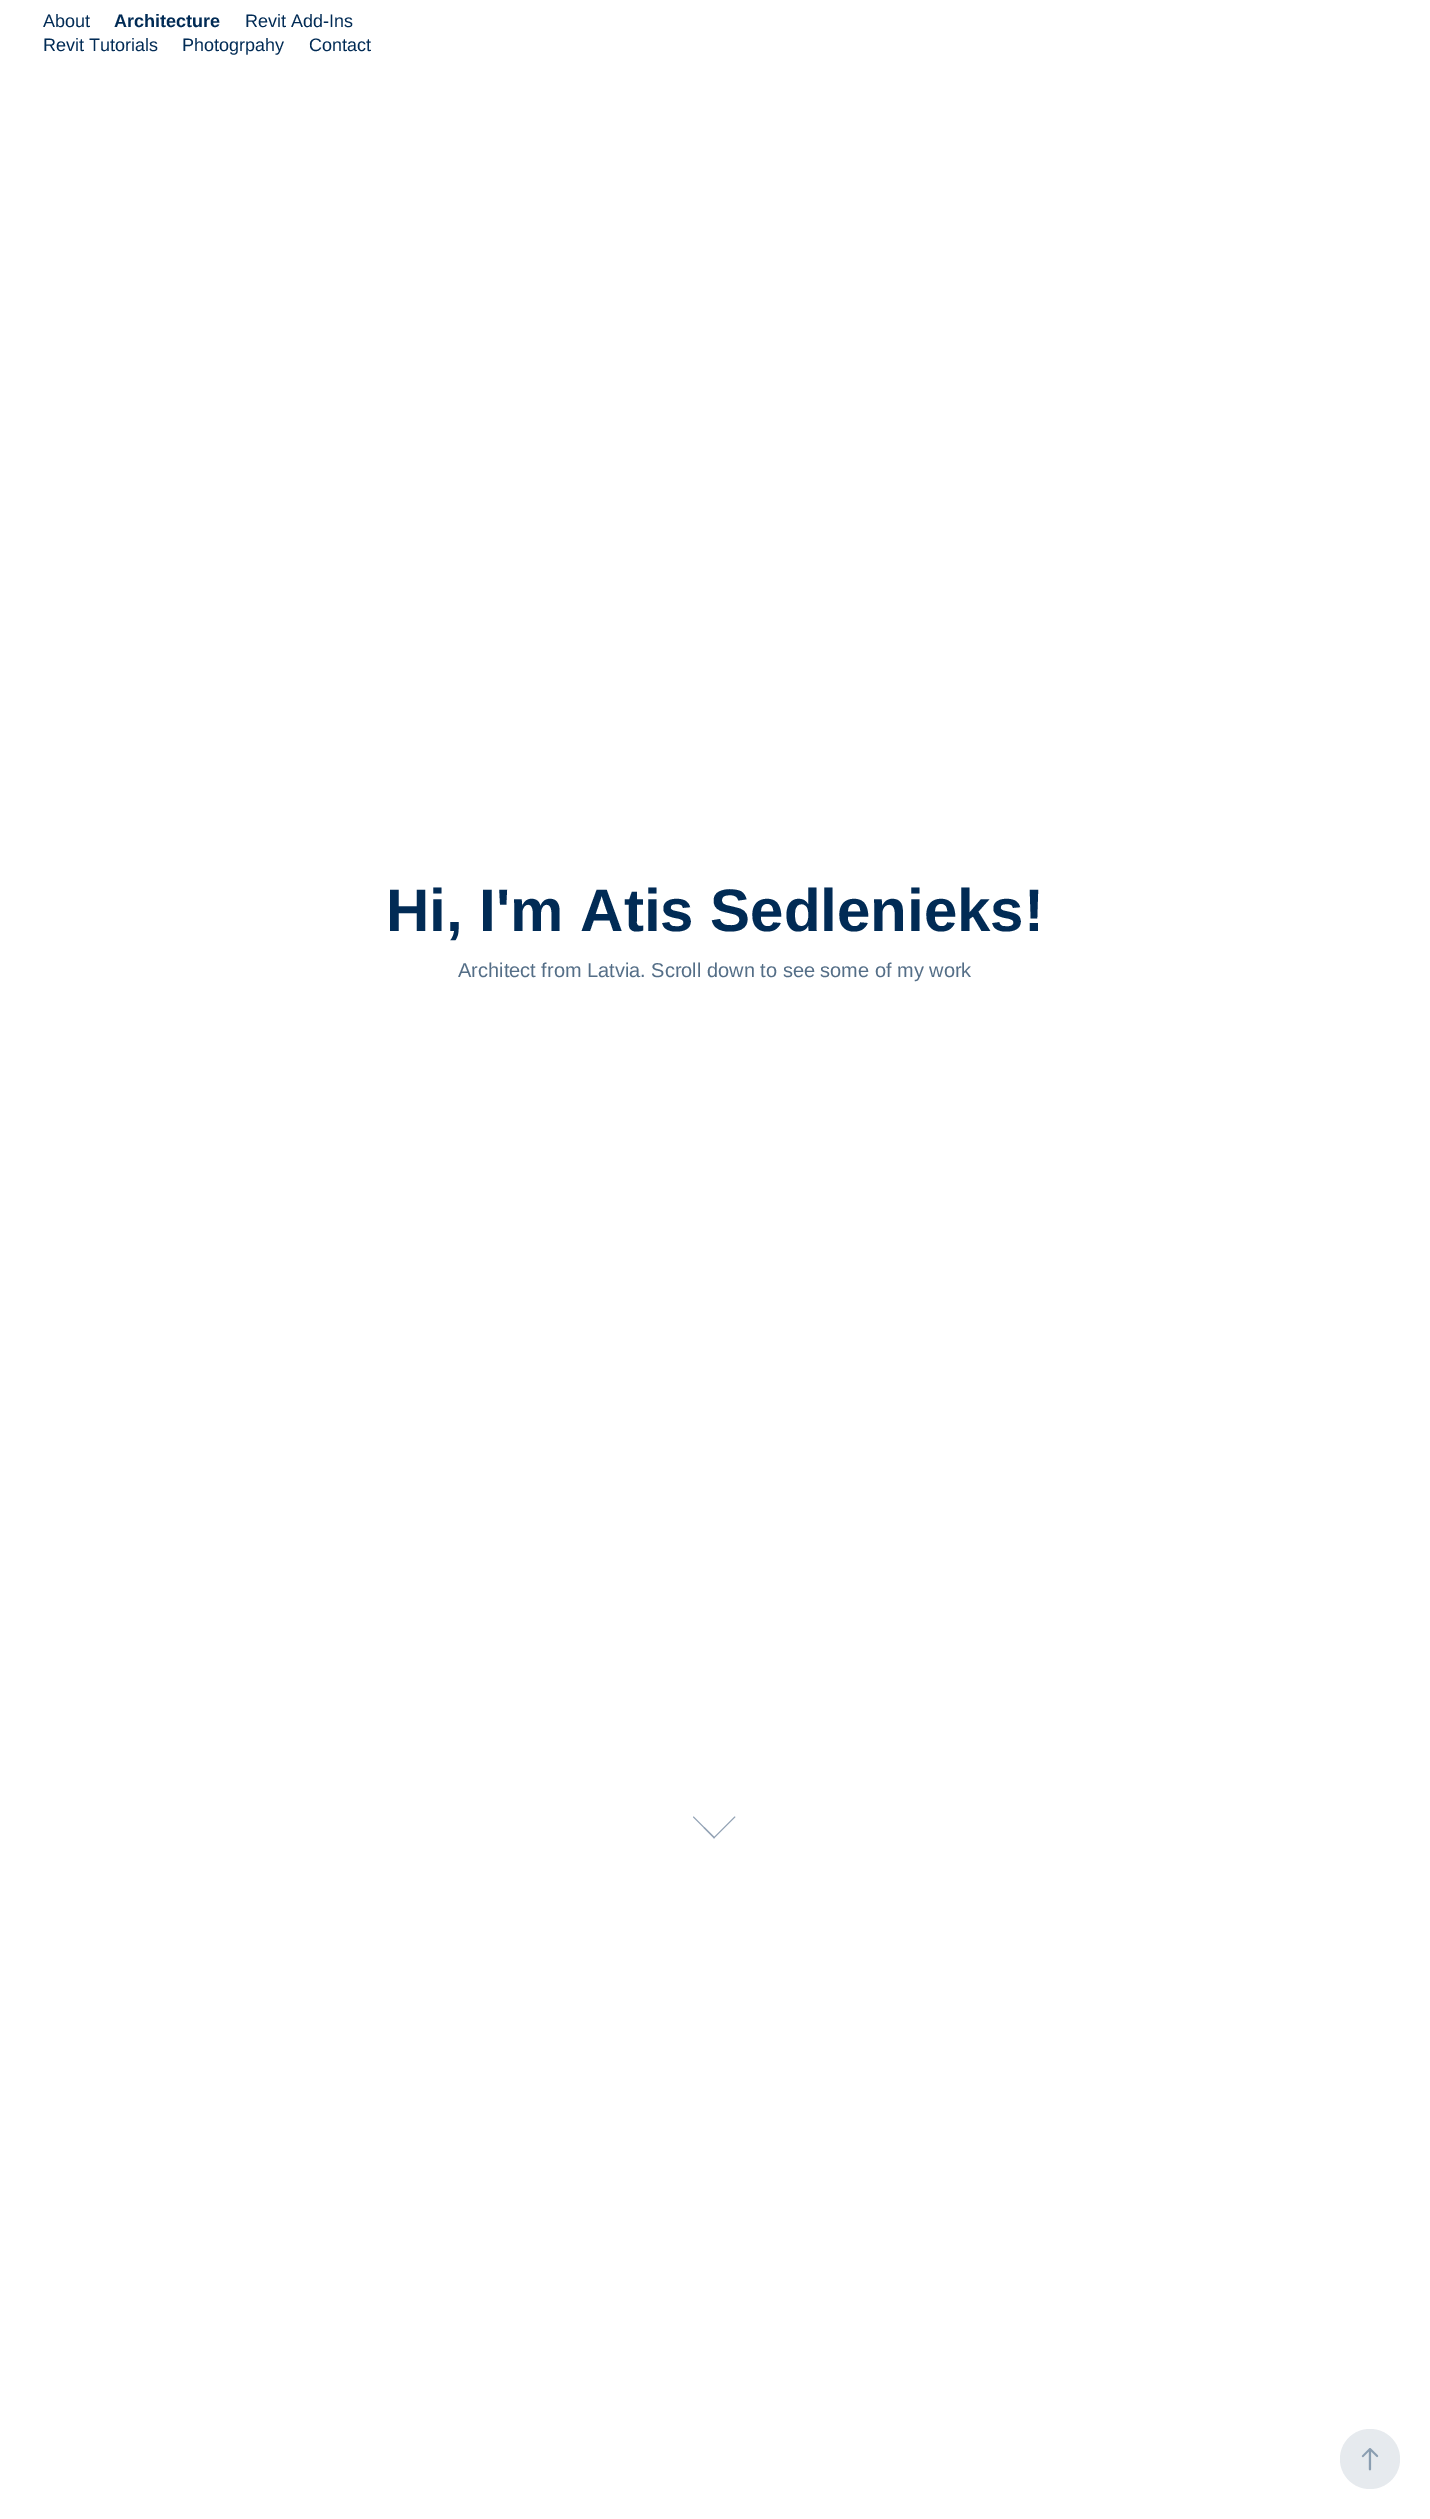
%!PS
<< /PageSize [1430 2519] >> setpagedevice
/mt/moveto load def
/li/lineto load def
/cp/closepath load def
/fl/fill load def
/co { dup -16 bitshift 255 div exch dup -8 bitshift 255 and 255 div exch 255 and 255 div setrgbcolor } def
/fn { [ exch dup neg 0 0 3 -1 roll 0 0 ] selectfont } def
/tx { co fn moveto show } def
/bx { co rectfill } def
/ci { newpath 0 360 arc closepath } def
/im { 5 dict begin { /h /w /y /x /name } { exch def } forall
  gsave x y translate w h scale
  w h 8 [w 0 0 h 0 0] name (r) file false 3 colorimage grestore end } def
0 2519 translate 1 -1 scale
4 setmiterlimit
0 0 1430 2519 16#FFFFFF bx
16#91A1B4 co
734.5 1816.5 mt 735.5 1817 li 714 1838.5 li 713.5 1837.5 li cp fl
693.5 1816.5 mt 715 1837.5 li 714 1838.5 li 693 1817 li cp fl
16#E6EAEE co
1370 2459 30 ci fl
(media/1.raw) 1361 2448 18 23 im
(About) 43 27 /LiberationSans-Regular 18 16#012B55 tx
(Architecture) 114 27 /LiberationSans-Bold 18 16#012B55 tx
(Revit Add-Ins) 245 27 /LiberationSans-Regular 18 16#012B55 tx
(Revit Tutorials) 43 51 /LiberationSans-Regular 18 16#012B55 tx
(Photogrpahy) 182 51 /LiberationSans-Regular 18 16#012B55 tx
(Contact) 309 51 /LiberationSans-Regular 18 16#012B55 tx
(Hi, I'm Atis Sedlenieks!) 386 931 /LiberationSans-Bold 60 16#012B55 tx
(Architect from Latvia. Scroll down to see some of my work) 458 977 /LiberationSans-Regular 20 16#546E87 tx
showpage
